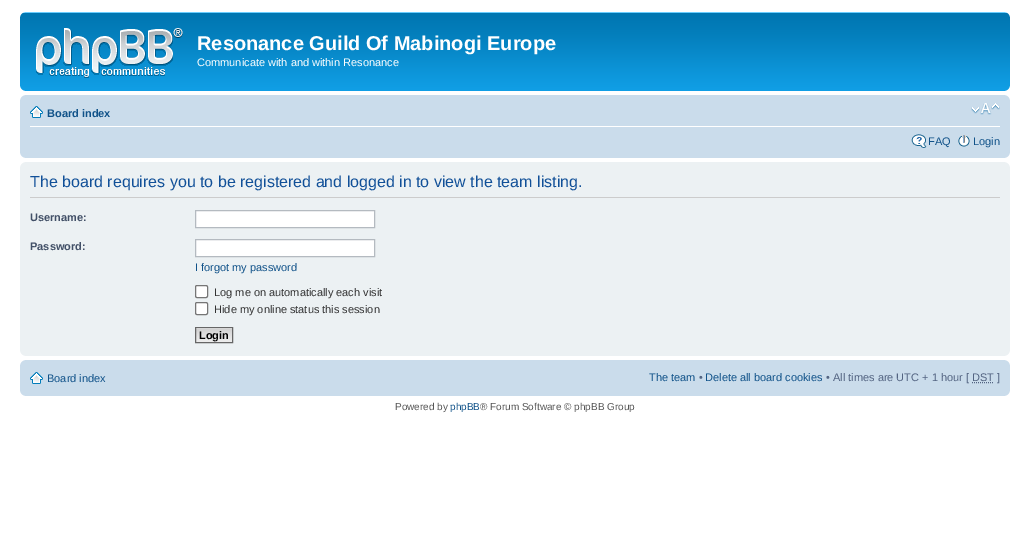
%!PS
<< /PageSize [1030 559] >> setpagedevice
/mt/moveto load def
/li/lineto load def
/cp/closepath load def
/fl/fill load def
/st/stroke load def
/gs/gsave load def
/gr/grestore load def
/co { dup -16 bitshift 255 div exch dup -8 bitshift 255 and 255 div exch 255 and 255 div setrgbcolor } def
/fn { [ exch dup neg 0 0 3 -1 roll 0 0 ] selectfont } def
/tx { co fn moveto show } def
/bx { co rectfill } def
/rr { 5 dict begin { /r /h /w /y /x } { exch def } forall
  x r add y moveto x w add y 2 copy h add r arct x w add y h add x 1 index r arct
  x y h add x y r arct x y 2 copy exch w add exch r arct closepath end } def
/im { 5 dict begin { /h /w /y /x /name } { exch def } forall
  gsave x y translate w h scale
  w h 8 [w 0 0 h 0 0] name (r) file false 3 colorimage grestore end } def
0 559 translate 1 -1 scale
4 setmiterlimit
0 0 1030 559 16#FFFFFF bx
(media/1.raw) 20 12 990 79 im
(media/2.raw) 20 12 5 5 im
(media/3.raw) 1005 12 5 5 im
(media/4.raw) 36 28 147 50 im
(media/5.raw) 20 86 5 5 im
(media/6.raw) 1005 86 5 5 im
20 95 990 63 16#CADCEB bx
(media/7.raw) 20 95 5 5 im
(media/8.raw) 1005 95 5 5 im
30 126 970 1 16#FFFFFF bx
(media/9.raw) 30 106 13 12 im
(media/10.raw) 971 103 29 12 im
(media/11.raw) 911 134 16 14 im
(media/12.raw) 958 135 12 12 im
(media/13.raw) 20 153 5 5 im
(media/14.raw) 1005 153 5 5 im
20 162 990 194 16#ECF1F3 bx
(media/15.raw) 20 162 5 5 im
(media/16.raw) 1005 162 5 5 im
30 197 970 1 16#CCCCCC bx
16#FFFFFF co
195.5 210.5 mt 374.5 210.5 li 374.5 227.5 li 195.5 227.5 li cp gs fl gr
16#B4BAC0 co
st
16#FFFFFF co
195.5 239.5 mt 374.5 239.5 li 374.5 256.5 li 195.5 256.5 li cp gs fl gr
16#B4BAC0 co
st
16#FFFFFF co
195.5 285.5 12 12 1.5 rr gs fl gr
16#767676 co
st
16#FFFFFF co
195.5 302.5 12 12 1.5 rr gs fl gr
16#767676 co
st
(media/17.raw) 196 328 36 14 im
16#666666 co
195.5 327.5 37 15 rectstroke
(media/18.raw) 20 351 5 5 im
(media/19.raw) 1005 351 5 5 im
20 360 990 36 16#CADCEB bx
(media/7.raw) 20 360 5 5 im
(media/8.raw) 1005 360 5 5 im
(media/9.raw) 30 372 13 12 im
16#536482 co
[1 1] 0 setdash
972 382.5 mt 994 382.5 li st
(media/13.raw) 20 391 5 5 im
(media/14.raw) 1005 391 5 5 im
(Resonance Guild Of Mabinogi Europe) 197 50 /LiberationSans-Bold 20 16#FFFFFF tx
(Communicate with and within Resonance) 197 66 /LiberationSans-Regular 11 16#FFFFFF tx
(Board index) 47 117 /LiberationSans-Bold 11 16#105289 tx
(FAQ) 928 145 /LiberationSans-Regular 11 16#105289 tx
(Login) 973 145 /LiberationSans-Regular 11 16#105289 tx
(The board requires you to be registered and logged in to view the team listing.) 30 187 /LiberationSans-Regular 16 16#115098 tx
(Username:) 30 221 /LiberationSans-Bold 11 16#425067 tx
(Password:) 30 250 /LiberationSans-Bold 11 16#425067 tx
(I forgot my password) 195 271 /LiberationSans-Regular 11 16#105289 tx
(Log me on automatically each visit) 214 296 /LiberationSans-Regular 11 16#333333 tx
(Hide my online status this session) 214 313 /LiberationSans-Regular 11 16#333333 tx
(Login) 199 339 /LiberationSans-Bold 11 16#000000 tx
(Board index) 47 382 /LiberationSans-Regular 11 16#105289 tx
(The team) 649 381 /LiberationSans-Regular 11 16#105289 tx
(•) 699 381 /LiberationSans-Regular 11 16#536482 tx
(Delete all board cookies) 705 381 /LiberationSans-Regular 11 16#105289 tx
(• All times are UTC + 1 hour [ DST ]) 826 381 /LiberationSans-Regular 11 16#536482 tx
(Powered by) 395 410 /LiberationSans-Regular 10 16#555555 tx
(phpBB) 450 410 /LiberationSans-Regular 10 16#105289 tx
(® Forum Software © phpBB Group) 480 410 /LiberationSans-Regular 10 16#555555 tx
showpage
